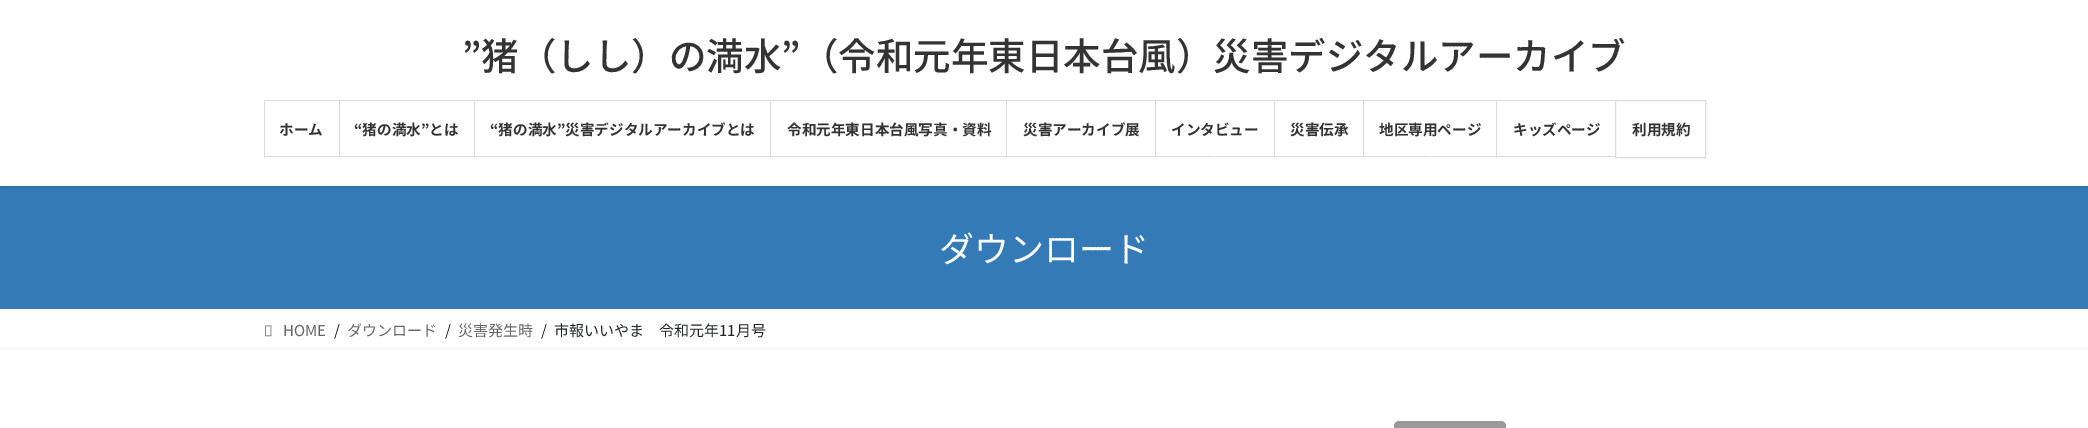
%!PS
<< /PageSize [2088 428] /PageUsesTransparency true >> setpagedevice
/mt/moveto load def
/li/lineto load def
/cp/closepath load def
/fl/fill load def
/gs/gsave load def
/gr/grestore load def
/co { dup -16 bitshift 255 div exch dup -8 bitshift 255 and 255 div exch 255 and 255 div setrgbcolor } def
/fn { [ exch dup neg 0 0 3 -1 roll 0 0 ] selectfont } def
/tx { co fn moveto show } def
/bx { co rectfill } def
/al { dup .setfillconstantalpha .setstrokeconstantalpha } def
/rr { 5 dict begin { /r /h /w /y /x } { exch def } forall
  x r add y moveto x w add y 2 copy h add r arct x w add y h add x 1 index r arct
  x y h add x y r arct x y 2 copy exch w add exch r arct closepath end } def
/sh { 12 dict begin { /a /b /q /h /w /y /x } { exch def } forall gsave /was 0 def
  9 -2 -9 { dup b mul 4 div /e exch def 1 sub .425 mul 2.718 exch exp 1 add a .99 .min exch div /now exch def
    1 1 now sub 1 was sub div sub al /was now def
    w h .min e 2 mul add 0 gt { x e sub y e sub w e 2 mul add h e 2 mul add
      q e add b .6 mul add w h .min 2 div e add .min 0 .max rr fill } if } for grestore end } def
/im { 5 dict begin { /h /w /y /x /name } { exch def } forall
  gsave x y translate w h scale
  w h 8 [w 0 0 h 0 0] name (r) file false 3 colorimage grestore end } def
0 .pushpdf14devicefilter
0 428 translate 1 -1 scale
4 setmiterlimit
0 0 2088 428 16#FFFFFF bx
0 186 2088 123 16#337AB7 bx
gs
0 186 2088 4 rectclip
16#000000 co
0 1 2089 187 0 2 .1 sh
gr
264 100 1351 1 16#DCDCDC bx
264 156 1351 1 16#DCDCDC bx
264 100 1 58 16#DCDCDC bx
339 100 1 58 16#DCDCDC bx
474 100 1 58 16#DCDCDC bx
770 100 1 58 16#DCDCDC bx
1006 100 1 58 16#DCDCDC bx
1155 100 1 58 16#DCDCDC bx
16#FFFFFF co
1227.5 169 mt 1202.5 169 li 1215 156 li cp fl
1274 100 1 58 16#DCDCDC bx
1363 100 1 58 16#DCDCDC bx
16#FFFFFF co
1442.5 169 mt 1417.5 169 li 1430 156 li cp fl
1496 100 1 58 16#DCDCDC bx
1615.5 100.5 90 57 rectstroke
0 348 2088 1 16#F2F2F2 bx
(media/1.raw) 265 325 7 12 im
16#999999 co
1394 421 112 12 5 rr fl
(”猪（しし）の満水”（令和元年東日本台風）災害デジタルアーカイブ) 462 70 /NotoSansJP-Medium 37.5 16#333333 tx
(ホーム) 279 135 /NotoSansJP-Bold 14.6 16#333333 tx
(“猪の満水”とは) 354 135 /NotoSansJP-Bold 14.6 16#333333 tx
(“猪の満水”災害デジタルアーカイブとは) 490 135 /NotoSansJP-Bold 14.6 16#333333 tx
(令和元年東日本台風写真・資料) 787 135 /NotoSansJP-Bold 14.6 16#333333 tx
(災害アーカイブ展) 1023 135 /NotoSansJP-Bold 14.6 16#333333 tx
(インタビュー) 1171 135 /NotoSansJP-Bold 14.6 16#333333 tx
(災害伝承) 1290 135 /NotoSansJP-Bold 14.6 16#333333 tx
(地区専用ページ) 1379 135 /NotoSansJP-Bold 14.6 16#333333 tx
(キッズページ) 1513 135 /NotoSansJP-Bold 14.6 16#333333 tx
(利用規約) 1632 135 /NotoSansJP-Bold 14.6 16#333333 tx
(ダウンロード) 939 262 /NotoSansJP-Regular 35 16#FFFFFF tx
(HOME) 283 336 /NotoSansJP-Regular 15 16#666666 tx
(/) 334 336 /NotoSansJP-Regular 15 16#212529 tx
(ダウンロード) 347 336 /NotoSansJP-Regular 15 16#666666 tx
(/) 445 336 /NotoSansJP-Regular 15 16#212529 tx
(災害発生時) 458 336 /NotoSansJP-Regular 15 16#666666 tx
(/) 541 336 /NotoSansJP-Regular 15 16#212529 tx
(市報いいやま　令和元年11月号) 554 336 /NotoSansJP-Regular 15 16#212529 tx
.poppdf14devicefilter showpage
